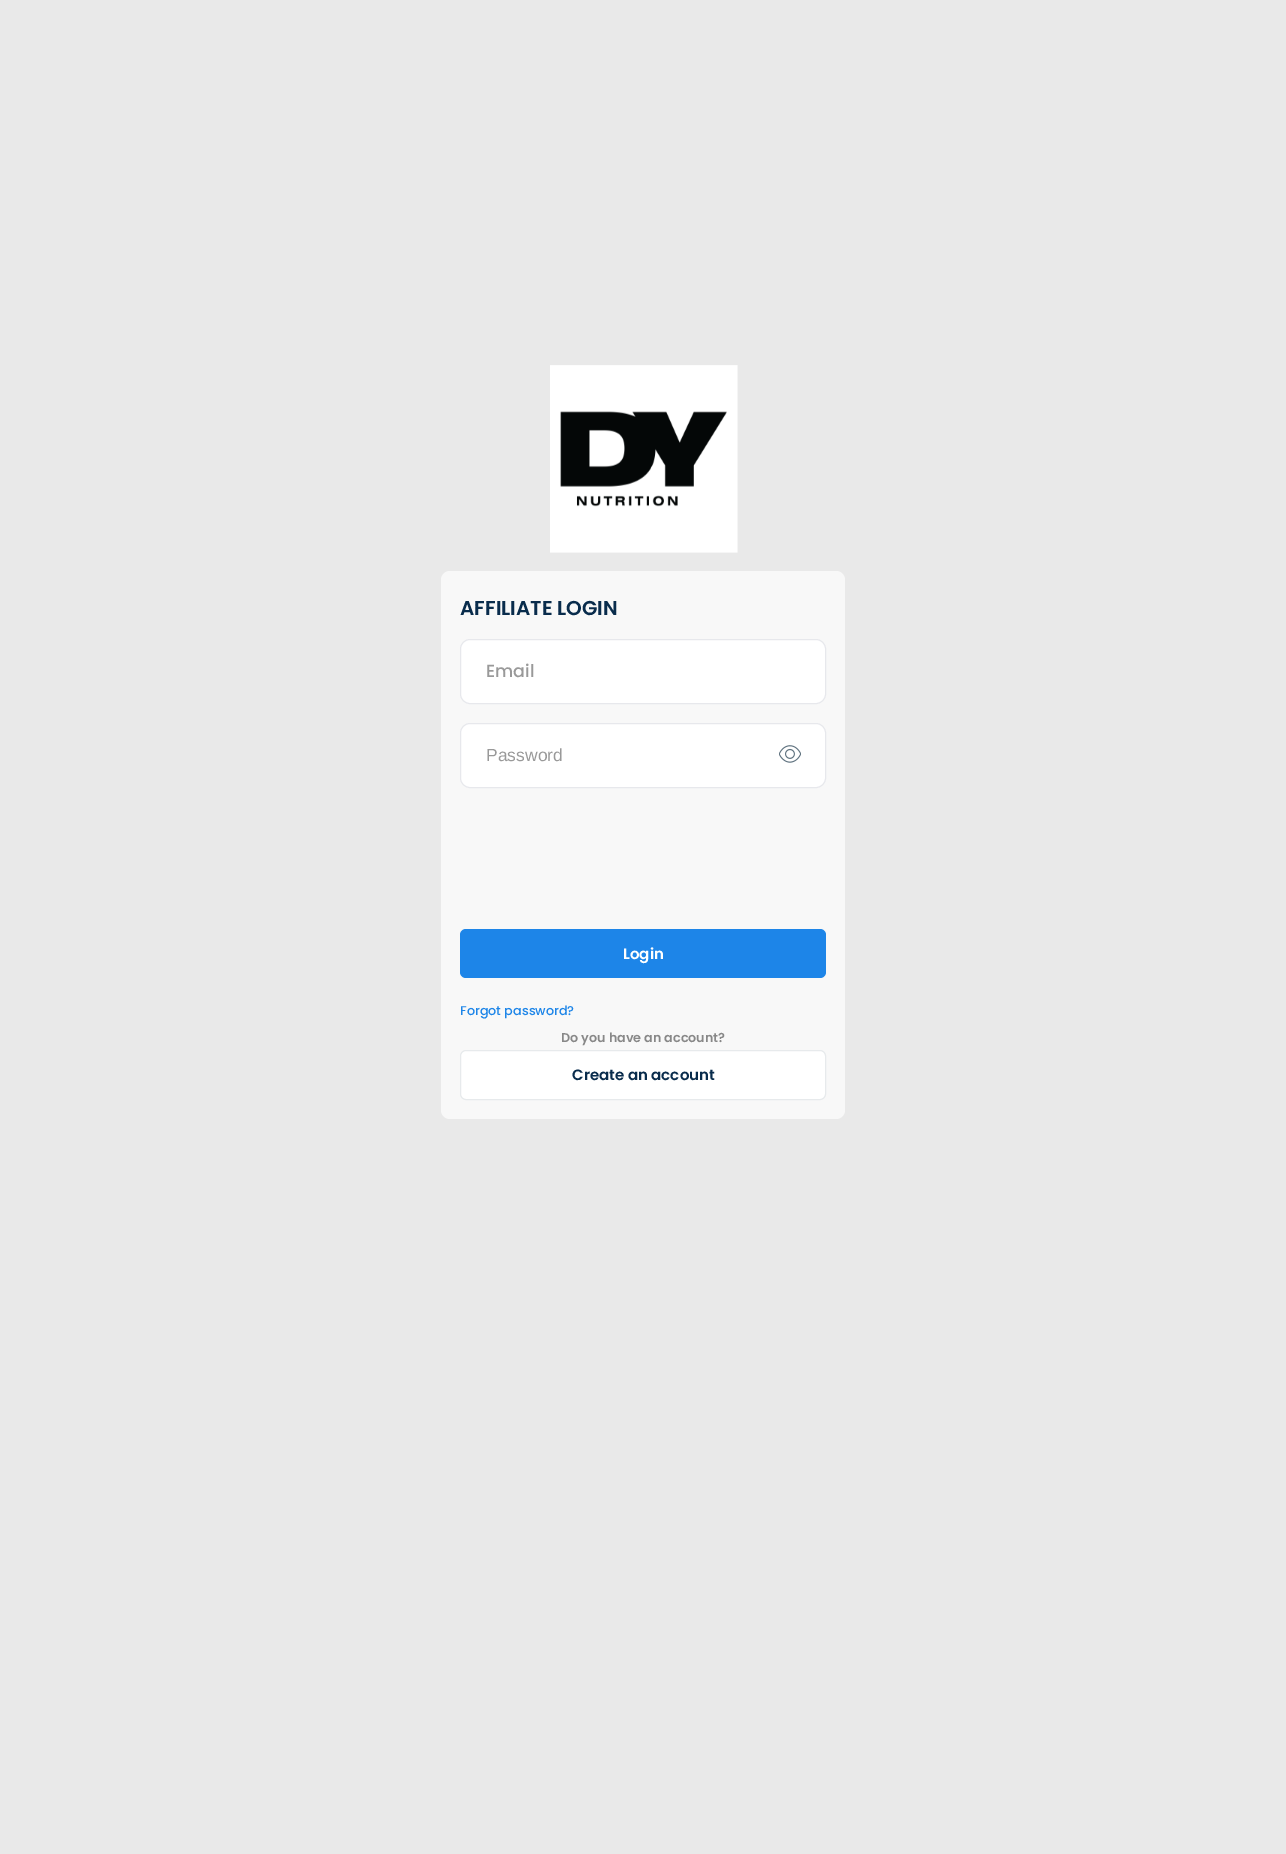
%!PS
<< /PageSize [1286 1854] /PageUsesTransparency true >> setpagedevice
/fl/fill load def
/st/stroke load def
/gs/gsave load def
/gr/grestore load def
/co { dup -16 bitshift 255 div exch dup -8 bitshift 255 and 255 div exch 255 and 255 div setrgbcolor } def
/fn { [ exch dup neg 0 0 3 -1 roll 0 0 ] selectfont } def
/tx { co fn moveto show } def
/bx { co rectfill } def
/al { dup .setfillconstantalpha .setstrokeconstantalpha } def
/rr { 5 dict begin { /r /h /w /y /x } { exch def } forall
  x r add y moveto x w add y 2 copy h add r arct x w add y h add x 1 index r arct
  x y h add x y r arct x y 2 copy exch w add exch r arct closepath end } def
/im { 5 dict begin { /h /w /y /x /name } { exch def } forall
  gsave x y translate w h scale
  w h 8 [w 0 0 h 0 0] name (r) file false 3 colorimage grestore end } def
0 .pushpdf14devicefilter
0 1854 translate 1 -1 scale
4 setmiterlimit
0 0 1286 1854 16#E9E9E9 bx
(media/1.raw) 550 365 188 188 im
0.7 al
16#FFFFFF co
441 571 404 548 9 rr fl
1 al
460.5 639.5 365 64 9.5 rr gs fl gr
16#E7E8EC co
st
16#FFFFFF co
460.5 723.5 365 64 9.5 rr gs fl gr
16#E7E8EC co
st
(media/2.raw) 779 745 22 18 im
16#1D85E8 co
460 929 366 49 6 rr fl
16#FFFFFF co
460.5 1050.5 365 49 5.5 rr gs fl gr
16#E7EAEC co
st
(AFFILIATE LOGIN) 460 615 /Poppins-SemiBold 20 16#092C4C tx
(Email) 486 677 /Poppins-Medium 17.5 16#999999 tx
(Password) 486 761 /LiberationSans-Regular 17.5 16#999999 tx
(Login) 623 959 /Poppins-SemiBold 15 16#FFFFFF tx
(Forgot password?) 460 1015 /Poppins-Medium 12.75 16#1D85E8 tx
(Do you have an account?) 561 1042 /Poppins-SemiBold 12.75 16#888888 tx
(Create an account) 572 1080 /Poppins-SemiBold 15 16#092C4C tx
.poppdf14devicefilter showpage
